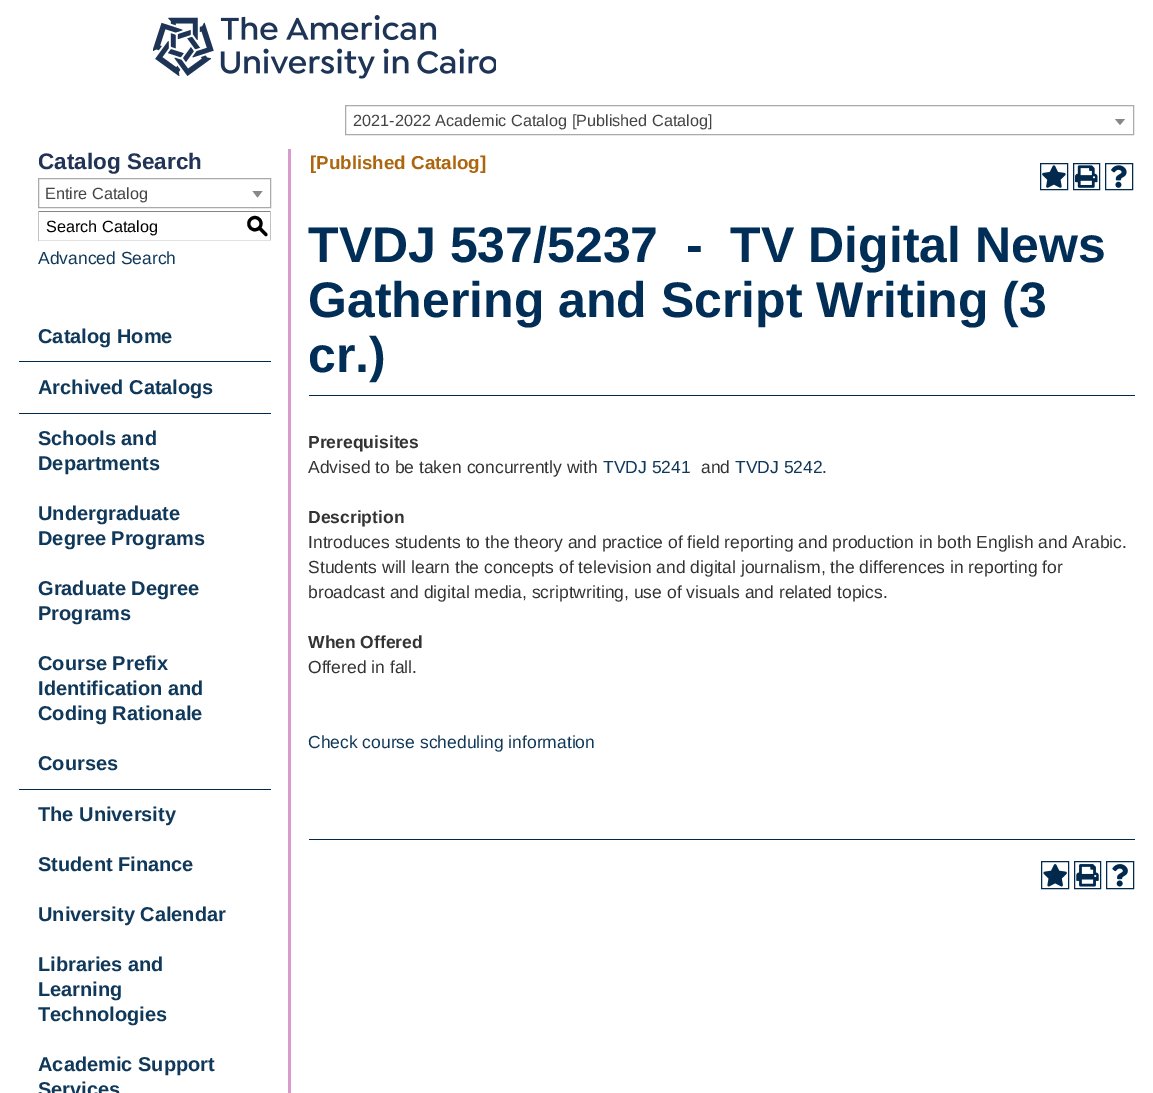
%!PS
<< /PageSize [1153 1093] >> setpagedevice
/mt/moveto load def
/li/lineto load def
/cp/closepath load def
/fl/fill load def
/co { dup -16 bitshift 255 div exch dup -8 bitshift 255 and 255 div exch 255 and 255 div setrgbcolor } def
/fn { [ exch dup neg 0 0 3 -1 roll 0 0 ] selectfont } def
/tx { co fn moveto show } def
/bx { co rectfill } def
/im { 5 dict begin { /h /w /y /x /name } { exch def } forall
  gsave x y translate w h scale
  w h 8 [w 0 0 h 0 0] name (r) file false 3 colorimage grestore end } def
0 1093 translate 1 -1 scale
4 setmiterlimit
0 0 1153 1093 16#FFFFFF bx
(media/1.raw) 153 15 343 64 im
16#AAAAAA co
345.5 105.5 788 29 rectstroke
16#888888 co
1115 119 mt 1125 119 li 1120 125 li cp fl
16#AAAAAA co
38.5 178.5 232 29 rectstroke
16#888888 co
252.5 191 mt 262.5 191 li 257.5 197.5 li cp fl
38 211 233 1 16#848484 bx
270 211 1 30 16#C1C1C1 bx
38 240 233 1 16#E1E1E1 bx
38 211 1 30 16#C1C1C1 bx
19 361 252 1 16#00294D bx
19 413 252 1 16#00294D bx
19 789 252 1 16#00294D bx
288 149 3 944 16#D99BCC bx
16#00294D co
1040.5 163.5 27 26 rectstroke
(media/2.raw) 1042 165 24 23 im
1073.5 163.5 26 26 rectstroke
(media/3.raw) 1075 165 23 23 im
1105.5 163.5 27 26 rectstroke
(media/4.raw) 1111 165 16 23 im
309 395 826 1 16#00294D bx
309 839 826 1 16#00294D bx
1041.5 861.5 27 27 rectstroke
(media/5.raw) 1043 864 24 23 im
1074.5 861.5 26 27 rectstroke
(media/6.raw) 1076 864 23 23 im
1106.5 861.5 27 27 rectstroke
(media/7.raw) 1112 864 16 23 im
(2021-2022 Academic Catalog [Published Catalog]) 353 126 /LiberationSans-Regular 16.25 16#444444 tx
(Catalog Search) 38 169 /LiberationSans-Bold 22.5 16#223355 tx
(Entire Catalog) 45 199 /LiberationSans-Regular 16.25 16#444444 tx
(Search Catalog) 46 232 /LiberationSans-Regular 16.25 16#000000 tx
(S) 246 233 /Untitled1-Medium 22.5 16#000000 tx
(Advanced Search) 38 264 /LiberationSans-Regular 17.5 16#0F385A tx
(Catalog Home) 38 343 /LiberationSans-Bold 20 16#0F385A tx
(Archived Catalogs) 38 394 /LiberationSans-Bold 20 16#0F385A tx
(Schools and) 38 445 /LiberationSans-Bold 20 16#0F385A tx
(Departments) 38 470 /LiberationSans-Bold 20 16#0F385A tx
(Undergraduate) 38 520 /LiberationSans-Bold 20 16#0F385A tx
(Degree Programs) 38 545 /LiberationSans-Bold 20 16#0F385A tx
(Graduate Degree) 38 595 /LiberationSans-Bold 20 16#0F385A tx
(Programs) 38 620 /LiberationSans-Bold 20 16#0F385A tx
(Course Prefix) 38 670 /LiberationSans-Bold 20 16#0F385A tx
(Identification and) 38 695 /LiberationSans-Bold 20 16#0F385A tx
(Coding Rationale) 38 720 /LiberationSans-Bold 20 16#0F385A tx
(Courses) 38 770 /LiberationSans-Bold 20 16#0F385A tx
(The University) 38 821 /LiberationSans-Bold 20 16#0F385A tx
(Student Finance) 38 871 /LiberationSans-Bold 20 16#0F385A tx
(University Calendar) 38 921 /LiberationSans-Bold 20 16#0F385A tx
(Libraries and) 38 971 /LiberationSans-Bold 20 16#0F385A tx
(Learning) 38 996 /LiberationSans-Bold 20 16#0F385A tx
(Technologies) 38 1021 /LiberationSans-Bold 20 16#0F385A tx
(Academic Support) 38 1071 /LiberationSans-Bold 20 16#0F385A tx
(Services) 38 1096 /LiberationSans-Bold 20 16#0F385A tx
([Published Catalog]) 310 169 /LiberationSans-Bold 18.75 16#AD650E tx
(TVDJ 537/5237  -  TV Digital News) 308 262 /LiberationSans-Bold 50 16#002E57 tx
(Gathering and Script Writing \(3) 308 317 /LiberationSans-Bold 50 16#002E57 tx
(cr.\)) 308 372 /LiberationSans-Bold 50 16#002E57 tx
(Prerequisites) 308 448 /LiberationSans-Bold 17.5 16#333333 tx
(Advised to be taken concurrently with) 308 473 /LiberationSans-Regular 17.5 16#333333 tx
(TVDJ 5241) 603 473 /LiberationSans-Regular 17.5 16#0F385A tx
(and) 701 473 /LiberationSans-Regular 17.5 16#333333 tx
(TVDJ 5242) 735 473 /LiberationSans-Regular 17.5 16#0F385A tx
(.) 822 473 /LiberationSans-Regular 17.5 16#333333 tx
(Description) 308 523 /LiberationSans-Bold 17.5 16#333333 tx
(Introduces students to the theory and practice of field reporting and production in both English and Arabic.) 308 548 /LiberationSans-Regular 17.5 16#333333 tx
(Students will learn the concepts of television and digital journalism, the differences in reporting for) 308 573 /LiberationSans-Regular 17.5 16#333333 tx
(broadcast and digital media, scriptwriting, use of visuals and related topics.) 308 598 /LiberationSans-Regular 17.5 16#333333 tx
(When Offered) 308 648 /LiberationSans-Bold 17.5 16#333333 tx
(Offered in fall.) 308 673 /LiberationSans-Regular 17.5 16#333333 tx
(Check course scheduling information) 308 748 /LiberationSans-Regular 17.5 16#0F385A tx
showpage
